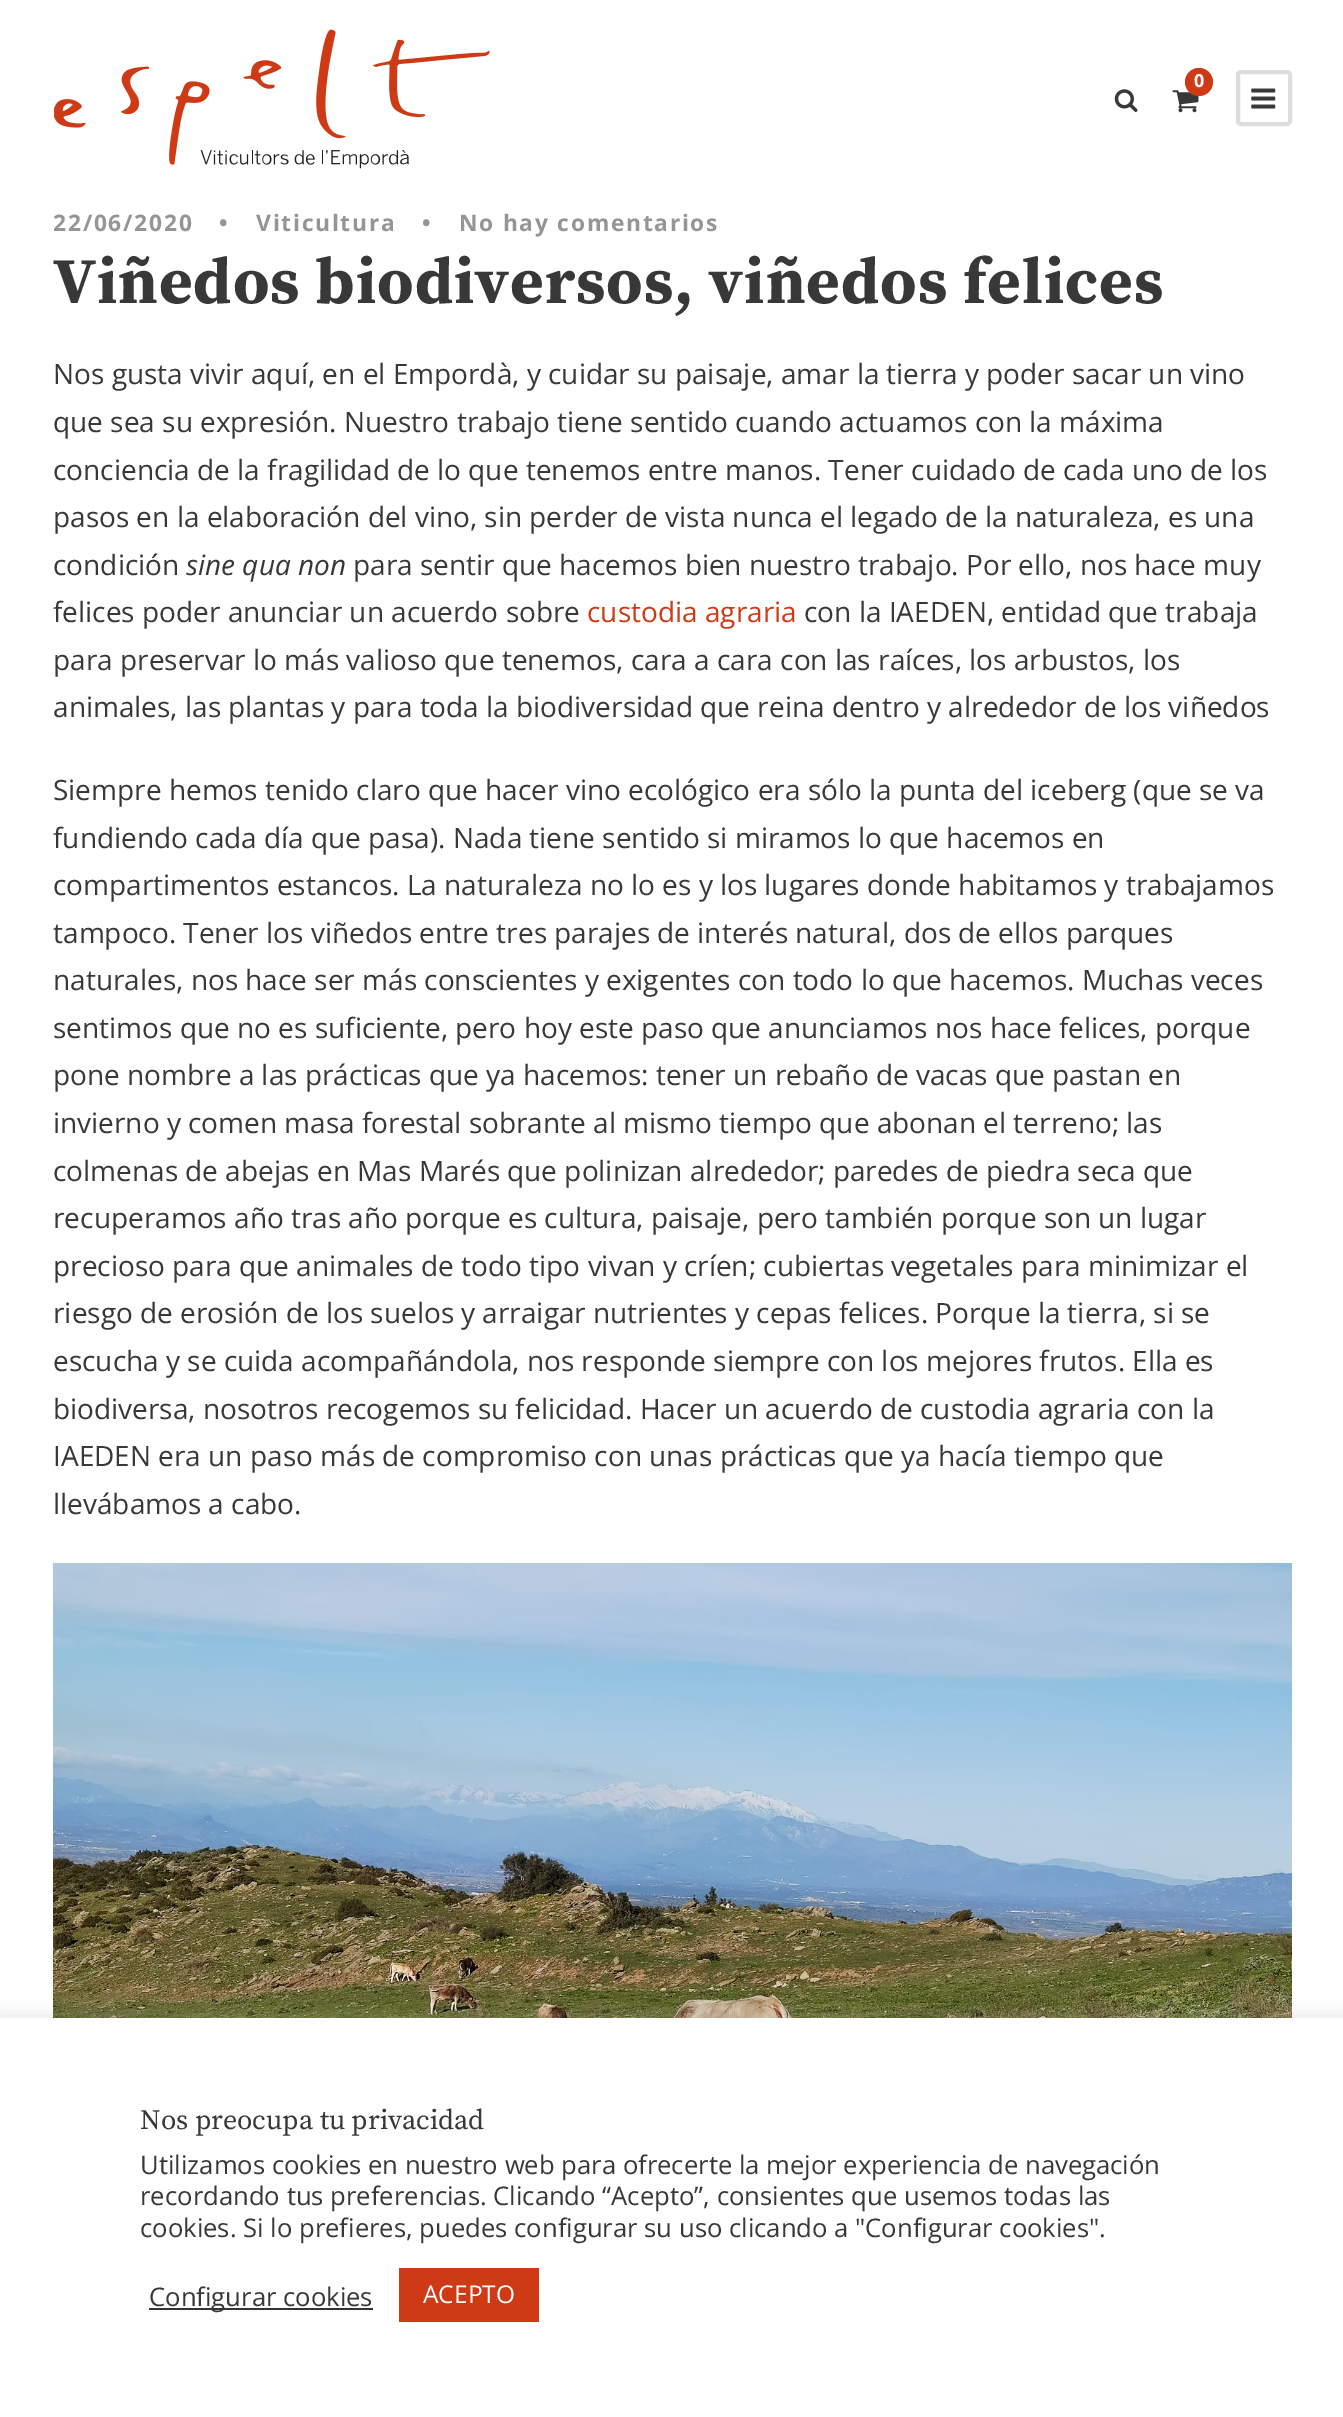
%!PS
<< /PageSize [1343 2417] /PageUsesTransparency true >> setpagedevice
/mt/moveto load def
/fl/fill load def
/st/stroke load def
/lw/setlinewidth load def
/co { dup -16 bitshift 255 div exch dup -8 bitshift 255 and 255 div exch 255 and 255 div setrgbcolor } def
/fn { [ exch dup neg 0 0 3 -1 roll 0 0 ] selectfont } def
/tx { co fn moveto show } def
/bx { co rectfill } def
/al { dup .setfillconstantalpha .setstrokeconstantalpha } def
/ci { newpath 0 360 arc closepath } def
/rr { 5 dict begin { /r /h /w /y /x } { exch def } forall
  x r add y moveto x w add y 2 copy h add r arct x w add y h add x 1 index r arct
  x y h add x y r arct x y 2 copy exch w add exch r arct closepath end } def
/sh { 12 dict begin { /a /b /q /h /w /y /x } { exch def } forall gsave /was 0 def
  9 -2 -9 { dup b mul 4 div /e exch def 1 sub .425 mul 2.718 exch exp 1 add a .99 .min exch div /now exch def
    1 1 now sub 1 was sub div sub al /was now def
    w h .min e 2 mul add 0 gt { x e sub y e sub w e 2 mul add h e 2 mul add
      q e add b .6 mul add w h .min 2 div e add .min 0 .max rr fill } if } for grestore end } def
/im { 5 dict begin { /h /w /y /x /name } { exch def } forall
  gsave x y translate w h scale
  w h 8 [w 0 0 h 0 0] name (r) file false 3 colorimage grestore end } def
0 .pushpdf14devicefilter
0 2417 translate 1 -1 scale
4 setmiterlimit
0 0 1343 2417 16#FFFFFF bx
(media/1.raw) 54 29 436 140 im
(media/2.raw) 1172 90 27 23 im
16#CD3A15 co
1199 82 14 ci fl
16#DDDDDD co
4 lw
1238 72 52 52 3 rr st
(media/3.raw) 1251 88 25 21 im
(media/4.raw) 1114 89 24 23 im
(media/5.raw) 53 1563 1239 455 im
16#ACABAB co
0 2016 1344 401 0 9 .3 sh
0 2018 1343 399 16#FFFFFF bx
149 2308 224 2 16#343434 bx
399 2268 140 54 16#CD3A15 bx
(0) 1194 87 /OpenSans-Bold 18 16#FFFFFF tx
/OpenSans-Bold 22.75 fn
16#959595 co
53 231 mt 1.75 0 (22/06/2020) ashow
219 231 mt 1.75 0 (•) ashow
256 231 mt 1.75 0 (Viticultura) ashow
422 231 mt 1.75 0 (•) ashow
459 231 mt 1.75 0 (No hay comentarios) ashow
/SourceSerifPro-Bold 64.75 fn
16#383838 co
53 303 mt .9 0 (Viñedos biodiversos, viñedos felices) ashow
(Nos gusta vivir aquí, en el Empordà, y cuidar su paisaje, amar la tierra y poder sacar un vino) 53 384 /OpenSans-Regular 28 16#383838 tx
(que sea su expresión. Nuestro trabajo tiene sentido cuando actuamos con la máxima) 53 432 /OpenSans-Regular 28 16#383838 tx
(conciencia de la fragilidad de lo que tenemos entre manos. Tener cuidado de cada uno de los) 53 480 /OpenSans-Regular 28 16#383838 tx
(pasos en la elaboración del vino, sin perder de vista nunca el legado de la naturaleza, es una) 53 527 /OpenSans-Regular 28 16#383838 tx
(condición) 53 575 /OpenSans-Regular 28 16#383838 tx
(sine qua non) 186 575 /OpenSans-Italic 28 16#383838 tx
(para sentir que hacemos bien nuestro trabajo. Por ello, nos hace muy) 353 575 /OpenSans-Regular 28 16#383838 tx
(felices poder anunciar un acuerdo sobre) 53 622 /OpenSans-Regular 28 16#383838 tx
(custodia agraria) 587 622 /OpenSans-Regular 28 16#CD3A15 tx
(con la IAEDEN, entidad que trabaja) 804 622 /OpenSans-Regular 28 16#383838 tx
(para preservar lo más valioso que tenemos, cara a cara con las raíces, los arbustos, los) 53 670 /OpenSans-Regular 28 16#383838 tx
(animales, las plantas y para toda la biodiversidad que reina dentro y alrededor de los viñedos) 53 717 /OpenSans-Regular 28 16#383838 tx
(Siempre hemos tenido claro que hacer vino ecológico era sólo la punta del iceberg \(que se va) 53 800 /OpenSans-Regular 28 16#383838 tx
(fundiendo cada día que pasa\). Nada tiene sentido si miramos lo que hacemos en) 53 848 /OpenSans-Regular 28 16#383838 tx
(compartimentos estancos. La naturaleza no lo es y los lugares donde habitamos y trabajamos) 53 895 /OpenSans-Regular 28 16#383838 tx
(tampoco. Tener los viñedos entre tres parajes de interés natural, dos de ellos parques) 53 943 /OpenSans-Regular 28 16#383838 tx
(naturales, nos hace ser más conscientes y exigentes con todo lo que hacemos. Muchas veces) 53 990 /OpenSans-Regular 28 16#383838 tx
(sentimos que no es suficiente, pero hoy este paso que anunciamos nos hace felices, porque) 53 1038 /OpenSans-Regular 28 16#383838 tx
(pone nombre a las prácticas que ya hacemos: tener un rebaño de vacas que pastan en) 53 1085 /OpenSans-Regular 28 16#383838 tx
(invierno y comen masa forestal sobrante al mismo tiempo que abonan el terreno; las) 53 1133 /OpenSans-Regular 28 16#383838 tx
(colmenas de abejas en Mas Marés que polinizan alrededor; paredes de piedra seca que) 53 1181 /OpenSans-Regular 28 16#383838 tx
(recuperamos año tras año porque es cultura, paisaje, pero también porque son un lugar) 53 1228 /OpenSans-Regular 28 16#383838 tx
(precioso para que animales de todo tipo vivan y críen; cubiertas vegetales para minimizar el) 53 1276 /OpenSans-Regular 28 16#383838 tx
(riesgo de erosión de los suelos y arraigar nutrientes y cepas felices. Porque la tierra, si se) 53 1323 /OpenSans-Regular 28 16#383838 tx
(escucha y se cuida acompañándola, nos responde siempre con los mejores frutos. Ella es) 53 1371 /OpenSans-Regular 28 16#383838 tx
(biodiversa, nosotros recogemos su felicidad. Hacer un acuerdo de custodia agraria con la) 53 1419 /OpenSans-Regular 28 16#383838 tx
(IAEDEN era un paso más de compromiso con unas prácticas que ya hacía tiempo que) 53 1466 /OpenSans-Regular 28 16#383838 tx
(llevábamos a cabo.) 53 1514 /OpenSans-Regular 28 16#383838 tx
(Nos preocupa tu privacidad) 140 2129 /SourceSerifPro-Regular 28 16#383838 tx
(Utilizamos cookies en nuestro web para ofrecerte la mejor experiencia de navegación) 140 2174 /OpenSans-Regular 25.65 16#383838 tx
(recordando tus preferencias. Clicando “Acepto”, consientes que usemos todas las) 140 2205 /OpenSans-Regular 25.65 16#383838 tx
(cookies. Si lo prefieres, puedes configurar su uso clicando a "Configurar cookies".) 140 2237 /OpenSans-Regular 25.65 16#383838 tx
(Configurar cookies) 149 2306 /OpenSans-Regular 25.65 16#383838 tx
(ACEPTO) 423 2303 /OpenSans-Regular 24.5 16#FFFFFF tx
.poppdf14devicefilter showpage
